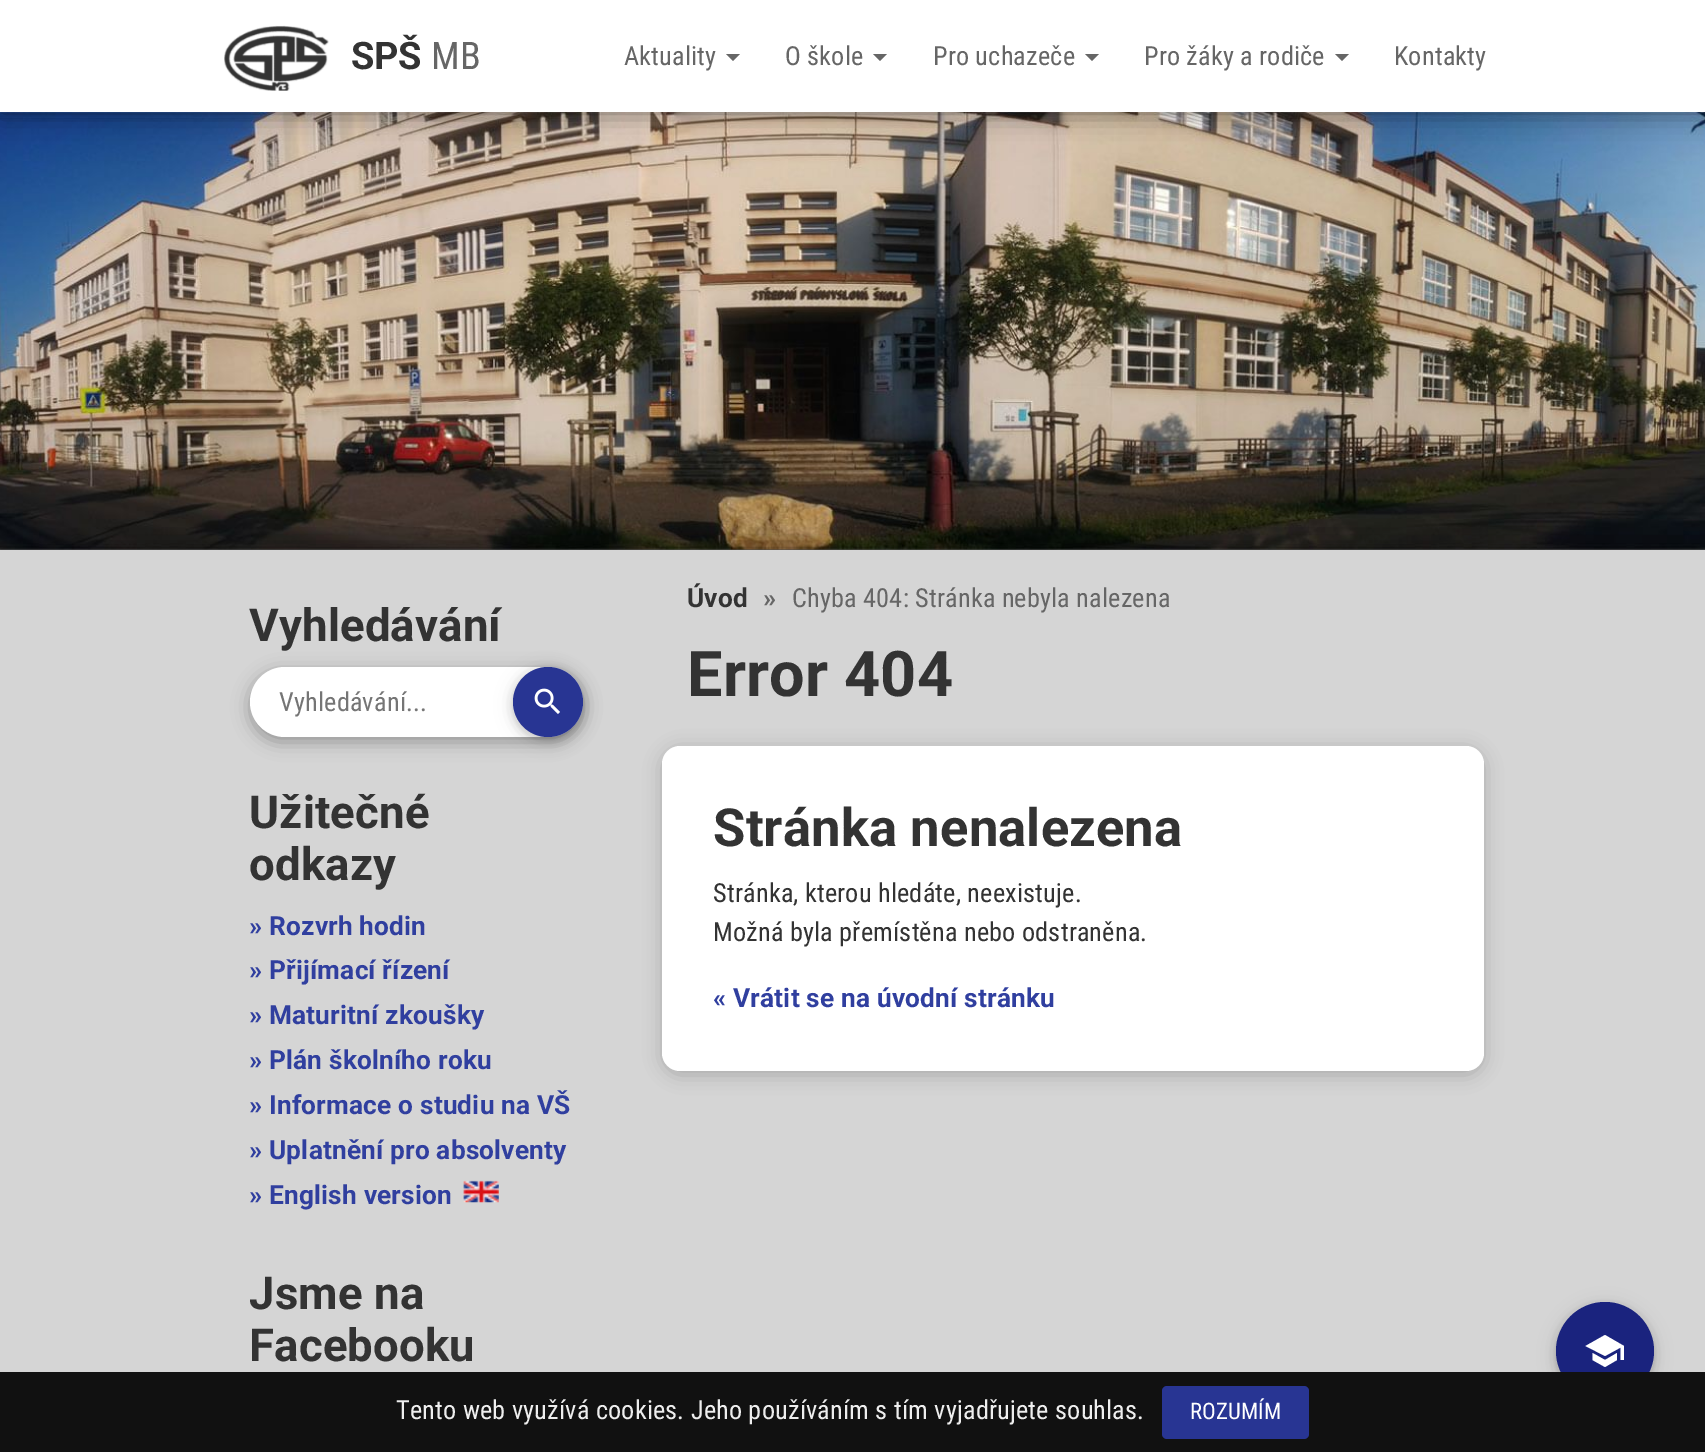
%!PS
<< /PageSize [1705 1452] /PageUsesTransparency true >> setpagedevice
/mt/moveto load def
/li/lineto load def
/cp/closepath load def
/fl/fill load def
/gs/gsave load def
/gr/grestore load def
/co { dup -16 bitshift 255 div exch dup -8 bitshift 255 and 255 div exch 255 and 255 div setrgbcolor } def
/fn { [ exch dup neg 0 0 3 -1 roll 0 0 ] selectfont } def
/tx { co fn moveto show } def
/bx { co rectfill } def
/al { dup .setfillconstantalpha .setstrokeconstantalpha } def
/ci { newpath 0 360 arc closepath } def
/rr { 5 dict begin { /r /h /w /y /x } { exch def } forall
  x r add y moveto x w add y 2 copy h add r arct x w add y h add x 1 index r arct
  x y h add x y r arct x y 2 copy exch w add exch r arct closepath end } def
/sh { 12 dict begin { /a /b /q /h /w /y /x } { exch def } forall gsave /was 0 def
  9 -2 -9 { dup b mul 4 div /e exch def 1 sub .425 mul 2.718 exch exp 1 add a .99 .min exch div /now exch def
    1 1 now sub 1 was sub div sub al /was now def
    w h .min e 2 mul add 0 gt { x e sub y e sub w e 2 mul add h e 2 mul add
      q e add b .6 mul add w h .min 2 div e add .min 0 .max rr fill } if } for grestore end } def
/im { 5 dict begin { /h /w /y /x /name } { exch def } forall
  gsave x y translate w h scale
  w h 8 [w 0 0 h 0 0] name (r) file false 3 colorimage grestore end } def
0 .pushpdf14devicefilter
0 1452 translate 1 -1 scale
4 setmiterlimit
0 0 1705 1452 16#D5D5D5 bx
0 549 1705 1 16#666666 bx
(media/2.raw) 0 112 1705 438 im
16#000000 co
0 0 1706 112 0 13 .5 sh
0 0 1705 112 16#FFFFFF bx
(media/1.raw) 224 25 105 66 im
16#666666 co
726 54 mt 740 54 li 733 61 li cp fl
873 54 mt 887 54 li 880 61 li cp fl
1085 54 mt 1099 54 li 1092 61 li cp fl
1335 54 mt 1349 54 li 1342 61 li cp fl
gs
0 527 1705 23 rectclip
16#000000 co
0 550 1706 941 0 13 .5 sh
gr
16#000000 co
250 672 333 70 35 9 .3 sh
16#FFFFFF co
250 667 333 70 35 rr fl
16#000000 co
513 670 70 70 35 9 .12 sh
513 670 70 70 35 4.5 .16 sh
16#283593 co
548 702 35 ci fl
(media/3.raw) 534 688 26 26 im
(media/4.raw) 463 1180 36 23 im
16#000000 co
662 749 822 326 18 9 .2 sh
16#FFFFFF co
662 746 822 325 18 rr fl
16#000000 co
1556 1306 98 98 49 9 .12 sh
1556 1306 98 98 49 4.5 .16 sh
16#1A237E co
1605 1351 49 ci fl
16#FFFFFF co
1605 1335 mt 1624 1346 li 1624 1360 li 1620.5 1360 li 1620.5 1347.5 li 1605 1356 li 1585.5 1346 li cp 1592.5 1353 mt 1605 1360 li 1617 1353 li 1617 1360 li 1605 1367 li 1592.5 1360 li cp fl
0 1372 1705 80 16#111111 bx
16#283593 co
1162 1386 147 53 5 rr fl
/Roboto-Bold 38 fn
16#333333 co
351 69 mt -.5 0 (SPŠ) ashow
(MB) 431 69 /RobotoCondensed-Regular 38 16#666666 tx
/RobotoCondensed-Regular 26.25 fn
624 65 mt .18 0 (Aktuality) ashow
785 65 mt .18 0 (O škole) ashow
933 65 mt .18 0 (Pro uchazeče) ashow
1144 65 mt .18 0 (Pro žáky a rodiče) ashow
1394 65 mt .18 0 (Kontakty) ashow
/Roboto-Bold 45.5 fn
16#333333 co
249 641 mt .18 0 (Vyhledávání) ashow
/RobotoCondensed-Regular 26.25 fn
16#757575 co
279 711 mt .18 0 (Vyhledávání...) ashow
/Roboto-Bold 45.5 fn
16#333333 co
249 828 mt .18 0 (Užitečné) ashow
249 880 mt .18 0 (odkazy) ashow
/Roboto-Bold 26.25 fn
16#303F9F co
249 935 mt .18 0 (» Rozvrh hodin) ashow
249 979 mt .18 0 (» Přijímací řízení) ashow
249 1024 mt .18 0 (» Maturitní zkoušky) ashow
249 1069 mt .18 0 (» Plán školního roku) ashow
249 1114 mt .18 0 (» Informace o studiu na VŠ) ashow
249 1159 mt .18 0 (» Uplatnění pro absolventy) ashow
249 1204 mt .18 0 (» English version) ashow
/Roboto-Bold 45.5 fn
16#333333 co
249 1309 mt .18 0 (Jsme na) ashow
249 1361 mt .18 0 (Facebooku) ashow
/Roboto-Bold 26.25 fn
687 607 mt .18 0 (Úvod) ashow
16#666666 co
763 607 mt .18 0 (») ashow
/RobotoCondensed-Regular 26.25 fn
792 607 mt .18 0 (Chyba 404: Stránka nebyla nalezena) ashow
/Roboto-Bold 63 fn
16#333333 co
687 696 mt .18 0 (Error 404) ashow
/Roboto-Bold 52.5 fn
713 846 mt .18 0 (Stránka nenalezena) ashow
/RobotoCondensed-Regular 26.25 fn
713 902 mt .18 0 (Stránka, kterou hledáte, neexistuje.) ashow
713 941 mt .18 0 (Možná byla přemístěna nebo odstraněna.) ashow
/Roboto-Bold 26.25 fn
16#303F9F co
713 1007 mt .18 0 (« Vrátit se na úvodní stránku) ashow
/RobotoCondensed-Regular 26.25 fn
16#EEEEEE co
396 1419 mt .18 0 (Tento web využívá cookies. Jeho používáním s tím vyjadřujete souhlas.) ashow
/RobotoCondensed-Regular 22.75 fn
16#FFFFFF co
1190 1419 mt .18 0 (ROZUMÍM) ashow
.poppdf14devicefilter showpage
